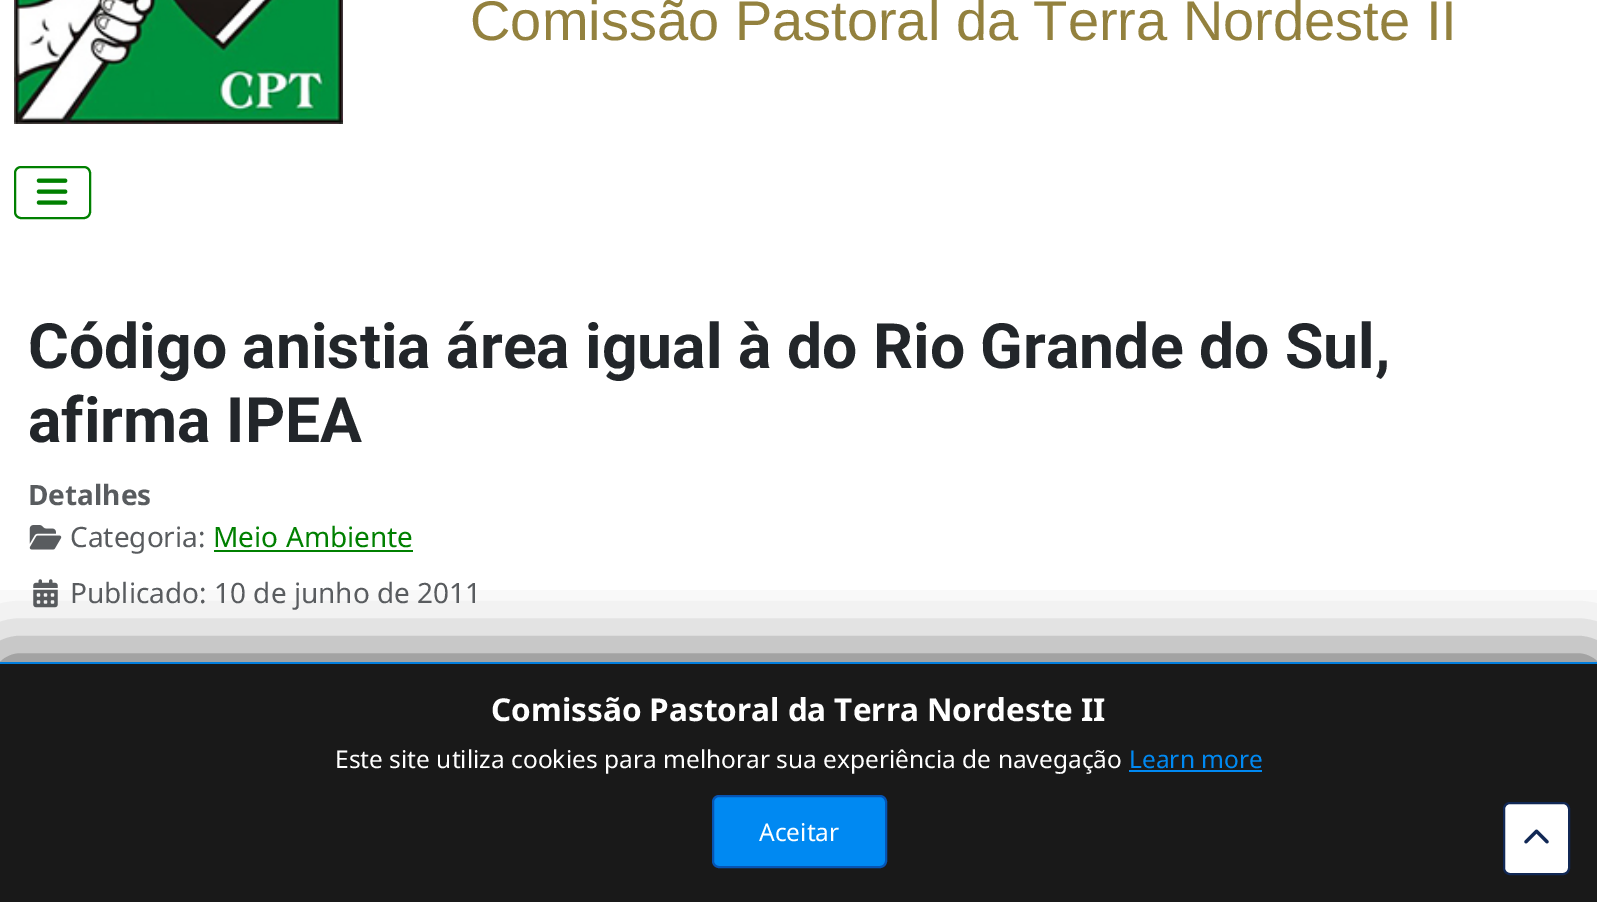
%!PS
<< /PageSize [1597 902] /PageUsesTransparency true >> setpagedevice
/fl/fill load def
/st/stroke load def
/gs/gsave load def
/gr/grestore load def
/lw/setlinewidth load def
/co { dup -16 bitshift 255 div exch dup -8 bitshift 255 and 255 div exch 255 and 255 div setrgbcolor } def
/fn { [ exch dup neg 0 0 3 -1 roll 0 0 ] selectfont } def
/tx { co fn moveto show } def
/bx { co rectfill } def
/al { dup .setfillconstantalpha .setstrokeconstantalpha } def
/rr { 5 dict begin { /r /h /w /y /x } { exch def } forall
  x r add y moveto x w add y 2 copy h add r arct x w add y h add x 1 index r arct
  x y h add x y r arct x y 2 copy exch w add exch r arct closepath end } def
/sh { 12 dict begin { /a /b /q /h /w /y /x } { exch def } forall gsave /was 0 def
  9 -2 -9 { dup b mul 4 div /e exch def 1 sub .425 mul 2.718 exch exp 1 add a .99 .min exch div /now exch def
    1 1 now sub 1 was sub div sub al /was now def
    w h .min e 2 mul add 0 gt { x e sub y e sub w e 2 mul add h e 2 mul add
      q e add b .6 mul add w h .min 2 div e add .min 0 .max rr fill } if } for grestore end } def
/im { 5 dict begin { /h /w /y /x /name } { exch def } forall
  gsave x y translate w h scale
  w h 8 [w 0 0 h 0 0] name (r) file false 3 colorimage grestore end } def
0 .pushpdf14devicefilter
0 902 translate 1 -1 scale
4 setmiterlimit
0 0 1597 902 16#FFFFFF bx
(media/1.raw) 14 0 329 124 im
16#008000 co
2 lw
15 167 75 51 6 rr st
(media/2.raw) 36 178 32 27 im
(media/3.raw) 29 525 33 25 im
214 550 199 2 16#008000 bx
(media/4.raw) 33 579 25 29 im
gs
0 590 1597 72 rectclip
16#444444 co
0 662 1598 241 0 35 1 sh
gr
0.9 al
0 662 1597 240 16#000000 bx
0 662 1597 2 16#0089F2 bx
1 al
1129 770 133 2 16#0089F2 bx
713 796 173 71 6 rr gs fl gr
16#0654B3 co
st
16#FFFFFF co
1504 803 65 71 6 rr gs fl gr
16#112855 co
st
(media/5.raw) 1524 829 25 15 im
(Comissão Pastoral da Terra Nordeste II) 470 40 /LiberationSans-Regular 56 16#93813E tx
(Código anistia área igual à do Rio Grande do Sul,) 28 368 /Roboto-Bold 62.5 16#22262A tx
(afirma IPEA) 28 442 /Roboto-Bold 62.5 16#22262A tx
(Detalhes) 28 505 /NotoSans-Bold 28 16#595C5F tx
(Categoria:) 70 547 /NotoSans-Regular 28 16#595C5F tx
(Meio Ambiente) 213 547 /NotoSans-Regular 28 16#008000 tx
(Publicado: 10 de junho de 2011) 70 603 /NotoSans-Regular 28 16#595C5F tx
(Comissão Pastoral da Terra Nordeste II) 491 721 /NotoSans-Bold 31.5 16#FFFFFF tx
(Este site utiliza cookies para melhorar sua experiência de navegação) 335 768 /NotoSans-Regular 24.5 16#FFFFFF tx
(Learn more) 1129 768 /NotoSans-Regular 24.5 16#0089F2 tx
(Aceitar) 759 841 /NotoSans-Regular 24.5 16#FFFFFF tx
.poppdf14devicefilter showpage
